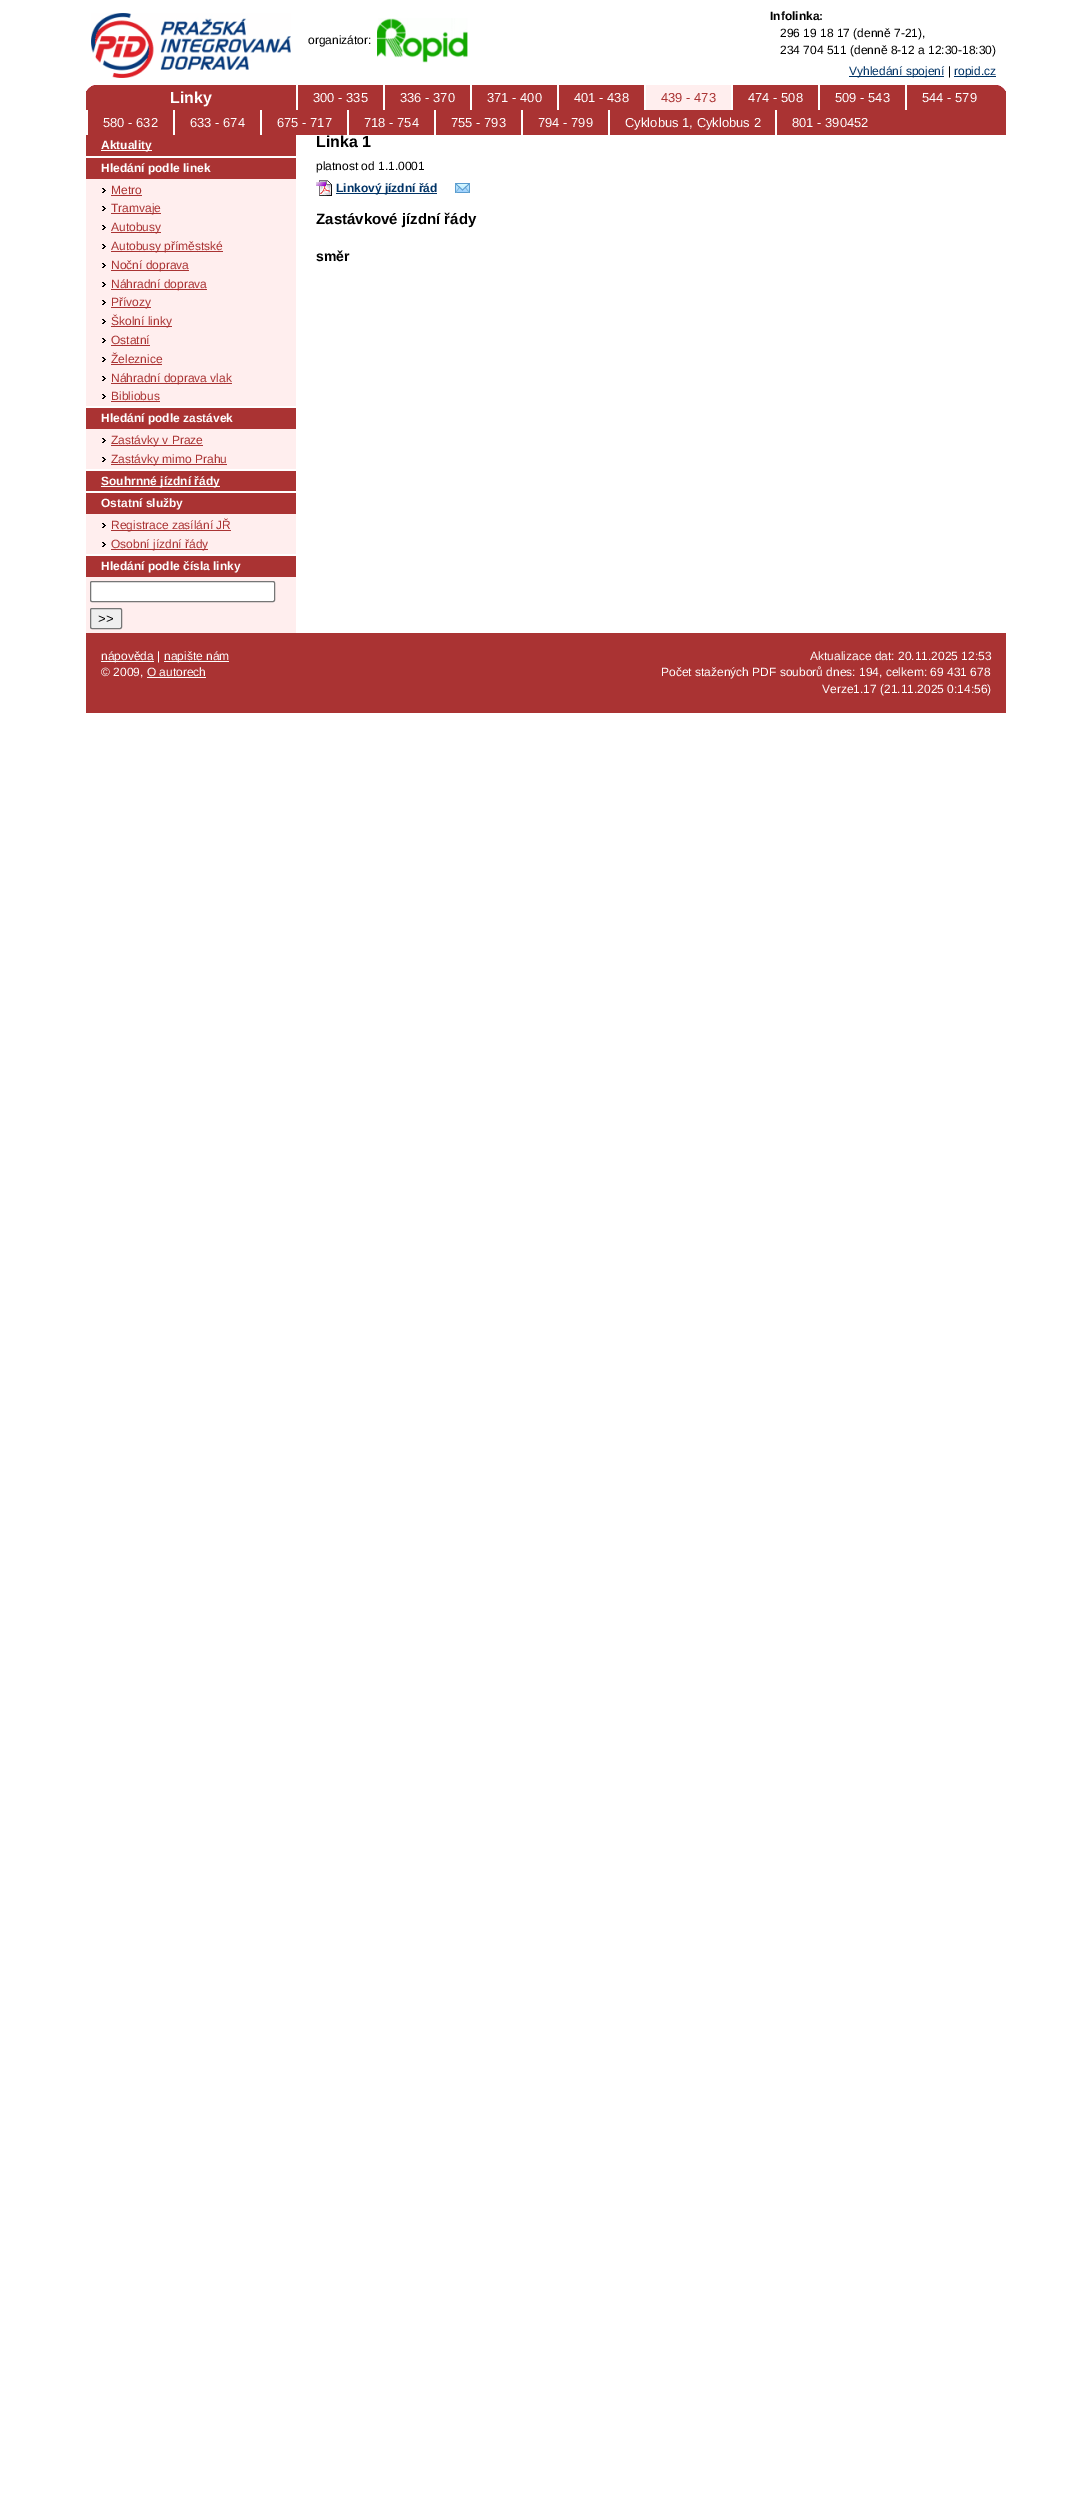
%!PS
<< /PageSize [1092 2501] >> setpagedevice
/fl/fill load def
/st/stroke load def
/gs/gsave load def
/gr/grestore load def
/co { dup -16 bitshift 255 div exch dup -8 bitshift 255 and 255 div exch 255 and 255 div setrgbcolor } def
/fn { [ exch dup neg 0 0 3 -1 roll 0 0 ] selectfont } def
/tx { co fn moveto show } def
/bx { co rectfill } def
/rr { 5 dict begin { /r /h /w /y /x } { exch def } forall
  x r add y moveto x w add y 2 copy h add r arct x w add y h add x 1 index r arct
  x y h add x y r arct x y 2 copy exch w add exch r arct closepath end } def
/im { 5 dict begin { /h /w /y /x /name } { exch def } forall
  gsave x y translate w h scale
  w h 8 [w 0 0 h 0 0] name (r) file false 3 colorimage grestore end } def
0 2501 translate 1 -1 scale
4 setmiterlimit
0 0 1092 2501 16#FFFFFF bx
(media/1.raw) 91 13 200 65 im
(media/2.raw) 377 18 91 45 im
849 76 95 1 16#003366 bx
954 76 42 1 16#003366 bx
86 85 920 50 16#AA3333 bx
(media/3.raw) 998 85 8 6 im
(media/4.raw) 86 85 8 6 im
296 85 2 25 16#FFFFFF bx
383 85 2 25 16#FFFFFF bx
470 85 2 25 16#FFFFFF bx
557 85 2 25 16#FFFFFF bx
646 85 85 25 16#FFEEEE bx
644 85 2 25 16#FFFFFF bx
731 85 2 25 16#FFFFFF bx
818 85 2 25 16#FFFFFF bx
905 85 2 25 16#FFFFFF bx
86 110 2 25 16#FFFFFF bx
173 110 2 25 16#FFFFFF bx
260 110 2 25 16#FFFFFF bx
347 110 2 25 16#FFFFFF bx
434 110 2 25 16#FFFFFF bx
521 110 2 25 16#FFFFFF bx
608 110 2 25 16#FFFFFF bx
775 110 2 25 16#FFFFFF bx
86 135 210 21 16#AA3333 bx
101 150 51 1 16#FFFFFF bx
86 179 210 227 16#FFEEEE bx
86 158 210 21 16#AA3333 bx
(media/5.raw) 102 188 4 5 im
111 195 31 1 16#AA3333 bx
(media/5.raw) 102 206 4 5 im
111 213 50 1 16#AA3333 bx
(media/5.raw) 102 225 4 5 im
111 232 50 1 16#AA3333 bx
(media/5.raw) 102 244 4 5 im
111 251 112 1 16#AA3333 bx
(media/5.raw) 102 263 4 5 im
111 270 78 1 16#AA3333 bx
(media/5.raw) 102 282 4 5 im
111 289 96 1 16#AA3333 bx
(media/5.raw) 102 300 4 5 im
111 307 40 1 16#AA3333 bx
(media/5.raw) 102 319 4 5 im
111 326 61 1 16#AA3333 bx
(media/5.raw) 102 338 4 5 im
111 345 39 1 16#AA3333 bx
(media/5.raw) 102 357 4 5 im
111 364 51 1 16#AA3333 bx
(media/5.raw) 102 376 4 5 im
111 383 121 1 16#AA3333 bx
(media/5.raw) 102 394 4 5 im
111 401 49 1 16#AA3333 bx
86 429 210 40 16#FFEEEE bx
86 408 210 21 16#AA3333 bx
(media/5.raw) 102 438 4 5 im
111 445 92 1 16#AA3333 bx
(media/5.raw) 102 457 4 5 im
111 464 116 1 16#AA3333 bx
86 471 210 20 16#AA3333 bx
101 486 119 1 16#FFFFFF bx
86 514 210 40 16#FFEEEE bx
86 493 210 21 16#AA3333 bx
(media/5.raw) 102 523 4 5 im
111 530 120 1 16#AA3333 bx
(media/5.raw) 102 542 4 5 im
111 549 97 1 16#AA3333 bx
86 577 210 56 16#FFEEEE bx
86 556 210 21 16#AA3333 bx
16#FFFFFF co
90.5 581.5 184 20 1.5 rr gs fl gr
16#767676 co
st
16#EFEFEF co
90.5 608.5 31 20 1.5 rr gs fl gr
16#767676 co
st
(media/6.raw) 316 180 16 16 im
336 193 101 1 16#003366 bx
(media/7.raw) 455 183 15 10 im
86 633 920 80 16#AA3333 bx
101 661 53 1 16#FFFFFF bx
164 661 65 1 16#FFFFFF bx
147 677 59 1 16#FFFFFF bx
(organizátor:) 308 44 /LiberationSans-Regular 12 16#000000 tx
(Infolinka:) 770 20 /LiberationSans-Bold 12 16#000000 tx
(296 19 18 17 \(denně 7-21\),) 780 37 /LiberationSans-Regular 12 16#000000 tx
(234 704 511 \(denně 8-12 a 12:30-18:30\)) 780 54 /LiberationSans-Regular 12 16#000000 tx
(Vyhledání spojení) 849 75 /LiberationSans-Regular 12 16#003366 tx
(|) 948 75 /LiberationSans-Regular 12 16#000000 tx
(ropid.cz) 954 75 /LiberationSans-Regular 12 16#003366 tx
(Linky) 170 103 /LiberationSans-Bold 16 16#FFFFFF tx
(300 - 335) 313 102 /LiberationSans-Regular 13 16#FFFFFF tx
(336 - 370) 400 102 /LiberationSans-Regular 13 16#FFFFFF tx
(371 - 400) 487 102 /LiberationSans-Regular 13 16#FFFFFF tx
(401 - 438) 574 102 /LiberationSans-Regular 13 16#FFFFFF tx
(439 - 473) 661 102 /LiberationSans-Regular 13 16#AA3333 tx
(474 - 508) 748 102 /LiberationSans-Regular 13 16#FFFFFF tx
(509 - 543) 835 102 /LiberationSans-Regular 13 16#FFFFFF tx
(544 - 579) 922 102 /LiberationSans-Regular 13 16#FFFFFF tx
(580 - 632) 103 127 /LiberationSans-Regular 13 16#FFFFFF tx
(633 - 674) 190 127 /LiberationSans-Regular 13 16#FFFFFF tx
(675 - 717) 277 127 /LiberationSans-Regular 13 16#FFFFFF tx
(718 - 754) 364 127 /LiberationSans-Regular 13 16#FFFFFF tx
(755 - 793) 451 127 /LiberationSans-Regular 13 16#FFFFFF tx
(794 - 799) 538 127 /LiberationSans-Regular 13 16#FFFFFF tx
(Cyklobus 1, Cyklobus 2) 625 127 /LiberationSans-Regular 13 16#FFFFFF tx
(801 - 390452) 792 127 /LiberationSans-Regular 13 16#FFFFFF tx
(Aktuality) 101 149 /LiberationSans-Bold 12 16#FFFFFF tx
(Hledání podle linek) 101 172 /LiberationSans-Bold 12 16#FFFFFF tx
(Metro) 111 194 /LiberationSans-Regular 12 16#AA3333 tx
(Tramvaje) 111 212 /LiberationSans-Regular 12 16#AA3333 tx
(Autobusy) 111 231 /LiberationSans-Regular 12 16#AA3333 tx
(Autobusy příměstské) 111 250 /LiberationSans-Regular 12 16#AA3333 tx
(Noční doprava) 111 269 /LiberationSans-Regular 12 16#AA3333 tx
(Náhradní doprava) 111 288 /LiberationSans-Regular 12 16#AA3333 tx
(Přívozy) 111 306 /LiberationSans-Regular 12 16#AA3333 tx
(Školní linky) 111 325 /LiberationSans-Regular 12 16#AA3333 tx
(Ostatní) 111 344 /LiberationSans-Regular 12 16#AA3333 tx
(Železnice) 111 363 /LiberationSans-Regular 12 16#AA3333 tx
(Náhradní doprava vlak) 111 382 /LiberationSans-Regular 12 16#AA3333 tx
(Bibliobus) 111 400 /LiberationSans-Regular 12 16#AA3333 tx
(Hledání podle zastávek) 101 422 /LiberationSans-Bold 12 16#FFFFFF tx
(Zastávky v Praze) 111 444 /LiberationSans-Regular 12 16#AA3333 tx
(Zastávky mimo Prahu) 111 463 /LiberationSans-Regular 12 16#AA3333 tx
(Souhrnné jízdní řády) 101 485 /LiberationSans-Bold 12 16#FFFFFF tx
(Ostatní služby) 101 507 /LiberationSans-Bold 12 16#FFFFFF tx
(Registrace zasílání JŘ) 111 529 /LiberationSans-Regular 12 16#AA3333 tx
(Osobní jízdní řády) 111 548 /LiberationSans-Regular 12 16#AA3333 tx
(Hledání podle čísla linky) 101 570 /LiberationSans-Bold 12 16#FFFFFF tx
(>>) 98 623 /LiberationSans-Regular 13 16#000000 tx
(Linka 1) 316 147 /LiberationSans-Bold 16 16#000000 tx
(platnost od 1.1.0001) 316 170 /LiberationSans-Regular 12 16#000000 tx
(Linkový jízdní řád) 336 192 /LiberationSans-Bold 12 16#003366 tx
(Zastávkové jízdní řády) 316 224 /LiberationSans-Bold 15 16#000000 tx
(směr) 316 261 /LiberationSans-Bold 14 16#000000 tx
(nápověda |) 101 660 /LiberationSans-Regular 12 16#FFFFFF tx
(napište nám) 164 660 /LiberationSans-Regular 12 16#FFFFFF tx
(Aktualizace dat: 20.11.2025 12:53) 810 660 /LiberationSans-Regular 12 16#FFFFFF tx
(© 2009, O autorech) 101 676 /LiberationSans-Regular 12 16#FFFFFF tx
(Počet stažených PDF souborů dnes: 194, celkem: 69 431 678) 661 676 /LiberationSans-Regular 12 16#FFFFFF tx
(Verze1.17 \(21.11.2025 0:14:56\)) 822 693 /LiberationSans-Regular 12 16#FFFFFF tx
showpage
